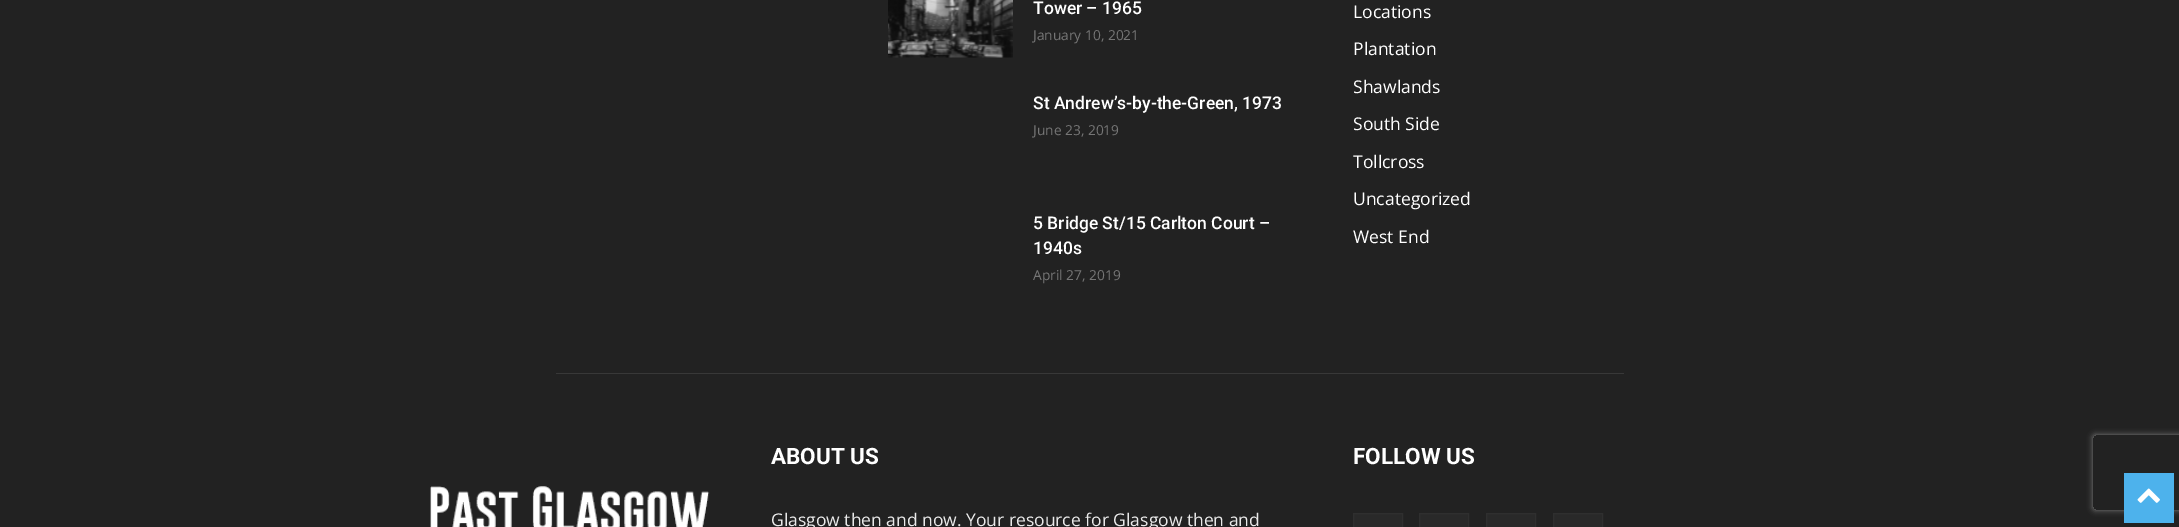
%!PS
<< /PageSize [2179 527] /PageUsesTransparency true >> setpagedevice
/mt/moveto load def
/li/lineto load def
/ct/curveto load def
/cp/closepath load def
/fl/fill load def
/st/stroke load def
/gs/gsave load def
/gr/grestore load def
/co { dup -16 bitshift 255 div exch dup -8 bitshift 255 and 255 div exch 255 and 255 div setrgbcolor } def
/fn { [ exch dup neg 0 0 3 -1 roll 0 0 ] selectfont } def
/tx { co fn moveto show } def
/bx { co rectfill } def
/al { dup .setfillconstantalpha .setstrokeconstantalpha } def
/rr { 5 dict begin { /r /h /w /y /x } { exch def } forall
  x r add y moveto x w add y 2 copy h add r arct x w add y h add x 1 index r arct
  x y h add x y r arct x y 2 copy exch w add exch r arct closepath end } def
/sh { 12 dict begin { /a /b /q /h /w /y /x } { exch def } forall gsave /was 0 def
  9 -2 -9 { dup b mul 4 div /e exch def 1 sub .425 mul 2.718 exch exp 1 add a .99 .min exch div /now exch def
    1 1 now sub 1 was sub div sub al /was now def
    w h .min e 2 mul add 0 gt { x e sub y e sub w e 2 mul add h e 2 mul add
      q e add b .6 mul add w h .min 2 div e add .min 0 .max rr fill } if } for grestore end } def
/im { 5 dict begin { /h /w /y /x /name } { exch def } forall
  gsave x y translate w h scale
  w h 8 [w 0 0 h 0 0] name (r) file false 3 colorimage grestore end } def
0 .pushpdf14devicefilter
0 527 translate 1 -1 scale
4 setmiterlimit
0 0 2179 527 16#222222 bx
(media/1.raw) 888 0 125 58 im
556 373 1068 1 16#383838 bx
16#292929 co
1353.5 513.5 mt 1402.5 513.5 li 1402.5 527.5 li 1353.5 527.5 li cp gs fl gr
16#2F2F2F co
st
16#292929 co
1419.5 513.5 mt 1468.5 513.5 li 1468.5 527.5 li 1419.5 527.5 li cp gs fl gr
16#2F2F2F co
st
16#292929 co
1486.5 513.5 mt 1535.5 513.5 li 1535.5 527.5 li 1486.5 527.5 li cp gs fl gr
16#2F2F2F co
st
16#292929 co
1553.5 513.5 mt 1602.5 513.5 li 1602.5 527.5 li 1553.5 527.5 li cp gs fl gr
16#2F2F2F co
st
(media/2.raw) 430 486 280 41 im
gs
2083 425 mt 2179 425 li 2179 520 li 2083 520 li cp 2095.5 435 mt 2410.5 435 li 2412 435 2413 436 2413 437.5 ct 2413 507.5 li 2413 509 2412 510 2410.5 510 ct 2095.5 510 li 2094 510 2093 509 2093 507.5 ct 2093 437.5 li 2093 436 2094 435 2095.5 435 ct cp eoclip newpath
16#808080 co
2093 435 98 75 2.5 3 1 sh
gr
2124 473 50 50 16#4DB2EC bx
(media/3.raw) 2137 488 23 15 im
(Tower – 1965) 1033 14 /Roboto-Medium 17.5 16#FFFFFF tx
(January 10, 2021) 1033 40 /OpenSans-Regular 13.75 16#767676 tx
(St Andrew’s-by-the-Green, 1973) 1033 109 /Roboto-Medium 17.5 16#FFFFFF tx
(June 23, 2019) 1033 135 /OpenSans-Regular 13.75 16#767676 tx
(5 Bridge St/15 Carlton Court –) 1033 229 /Roboto-Medium 17.5 16#FFFFFF tx
(1940s) 1033 254 /Roboto-Medium 17.5 16#FFFFFF tx
(April 27, 2019) 1033 280 /OpenSans-Regular 13.75 16#767676 tx
(Locations) 1353 18 /OpenSans-Regular 17.5 16#FFFFFF tx
(Plantation) 1353 55 /OpenSans-Regular 17.5 16#FFFFFF tx
(Shawlands) 1353 93 /OpenSans-Regular 17.5 16#FFFFFF tx
(South Side) 1353 130 /OpenSans-Regular 17.5 16#FFFFFF tx
(Tollcross) 1353 168 /OpenSans-Regular 17.5 16#FFFFFF tx
(Uncategorized) 1353 205 /OpenSans-Regular 17.5 16#FFFFFF tx
(West End) 1353 243 /OpenSans-Regular 17.5 16#FFFFFF tx
(ABOUT US) 771 464 /Roboto-Bold 22.5 16#FFFFFF tx
(Glasgow then and now. Your resource for Glasgow then and) 771 526 /OpenSans-Regular 17.5 16#EAEAEA tx
(FOLLOW US) 1353 464 /Roboto-Bold 22.5 16#FFFFFF tx
.poppdf14devicefilter showpage
